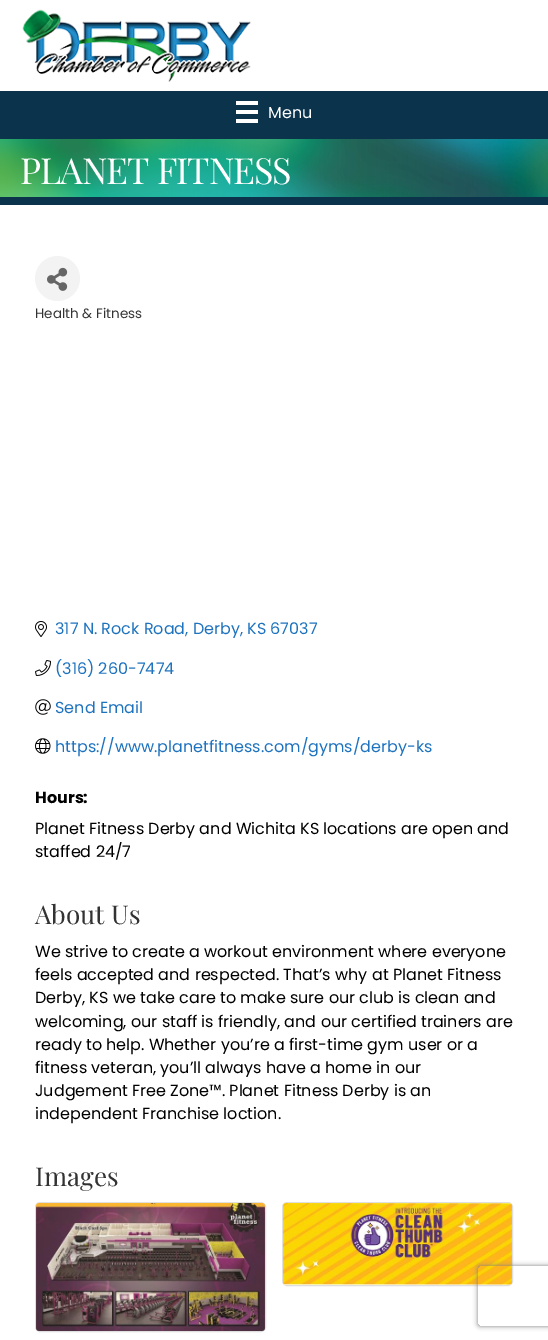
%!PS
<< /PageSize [548 1340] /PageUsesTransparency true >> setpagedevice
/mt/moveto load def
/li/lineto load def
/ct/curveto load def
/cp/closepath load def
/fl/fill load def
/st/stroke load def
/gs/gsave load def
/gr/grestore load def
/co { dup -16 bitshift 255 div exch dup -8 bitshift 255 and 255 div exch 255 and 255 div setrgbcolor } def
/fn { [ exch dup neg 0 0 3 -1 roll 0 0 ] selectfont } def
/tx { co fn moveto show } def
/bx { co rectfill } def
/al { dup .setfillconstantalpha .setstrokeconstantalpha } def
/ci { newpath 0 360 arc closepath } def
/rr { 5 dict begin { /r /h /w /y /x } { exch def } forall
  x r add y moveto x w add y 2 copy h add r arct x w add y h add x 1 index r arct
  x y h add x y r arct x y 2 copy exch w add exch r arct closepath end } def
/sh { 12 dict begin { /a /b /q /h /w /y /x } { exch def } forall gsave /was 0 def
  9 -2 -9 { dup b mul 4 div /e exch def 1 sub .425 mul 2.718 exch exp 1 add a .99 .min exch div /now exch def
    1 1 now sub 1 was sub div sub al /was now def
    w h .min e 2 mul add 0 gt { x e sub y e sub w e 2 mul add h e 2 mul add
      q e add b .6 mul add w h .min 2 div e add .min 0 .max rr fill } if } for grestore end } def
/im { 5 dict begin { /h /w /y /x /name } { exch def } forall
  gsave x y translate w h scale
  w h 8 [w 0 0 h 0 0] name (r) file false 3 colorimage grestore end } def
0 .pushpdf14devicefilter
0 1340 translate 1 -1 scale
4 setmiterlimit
0 0 548 1340 16#FFFFFF bx
(media/1.raw) 22 9 229 73 im
0 91 548 48 16#0B334C bx
236 101 22 4 16#FFFFFF bx
236 110 22 4 16#FFFFFF bx
236 119 22 4 16#FFFFFF bx
(media/2.raw) 0 139 548 58 im
0 197 548 8 16#0B334C bx
16#F3F3F3 co
57.5 278.5 22.5 ci fl
(media/3.raw) 47 267 21 24 im
(media/4.raw) 35 621 12 16 im
(media/5.raw) 35 660 16 16 im
(media/6.raw) 35 699 16 16 im
(media/7.raw) 35 738 16 16 im
16#DFDFDF co
35.5 1202.5 230 129 4.5 rr st
(media/8.raw) 36 1203 229 128 im
282.5 1202.5 230 83 4.5 rr st
(media/9.raw) 283 1203 229 82 im
gs
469 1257 mt 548 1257 li 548 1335 li 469 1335 li cp 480 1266 mt 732 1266 li 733 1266 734 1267 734 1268 ct 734 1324 li 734 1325 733 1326 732 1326 ct 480 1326 li 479 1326 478 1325 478 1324 ct 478 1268 li 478 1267 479 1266 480 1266 ct cp eoclip newpath
16#808080 co
478 1266 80 60 2 2.5 1 sh
gr
(Menu) 268 118 /Poppins-Regular 16 16#FFFFFF tx
/PlayfairDisplay-Regular 36 fn
20 184 mt -1 0 (PLANET FITNESS) ashow
(Health & Fitness) 35 318 /Poppins-Regular 13.5 16#333333 tx
(317 N. Rock Road, Derby, KS 67037) 55 634 /Poppins-Regular 16 16#1E73BE tx
(\(316\) 260-7474) 55 674 /Poppins-Regular 16 16#1E73BE tx
(Send Email) 55 713 /Poppins-Regular 16 16#1E73BE tx
(https://www.planetfitness.com/gyms/derby-ks) 55 752 /Poppins-Regular 16 16#1E73BE tx
(Hours:) 35 803 /Poppins-Bold 16 16#000000 tx
(Planet Fitness Derby and Wichita KS locations are open and) 35 834 /Poppins-Regular 16 16#000000 tx
(staffed 24/7) 35 857 /Poppins-Regular 16 16#000000 tx
(About Us) 35 924 /PlayfairDisplay-Regular 26 16#333333 tx
(We strive to create a workout environment where everyone) 35 957 /Poppins-Regular 16 16#000000 tx
(feels accepted and respected. That’s why at Planet Fitness) 35 980 /Poppins-Regular 16 16#000000 tx
(Derby, KS we take care to make sure our club is clean and) 35 1003 /Poppins-Regular 16 16#000000 tx
(welcoming, our staff is friendly, and our certified trainers are) 35 1027 /Poppins-Regular 16 16#000000 tx
(ready to help. Whether you’re a first-time gym user or a) 35 1050 /Poppins-Regular 16 16#000000 tx
(fitness veteran, you’ll always have a home in our) 35 1073 /Poppins-Regular 16 16#000000 tx
(Judgement Free Zone™. Planet Fitness Derby is an) 35 1096 /Poppins-Regular 16 16#000000 tx
(independent Franchise loction.) 35 1119 /Poppins-Regular 16 16#000000 tx
(Images) 35 1186 /PlayfairDisplay-Regular 26 16#333333 tx
.poppdf14devicefilter showpage
